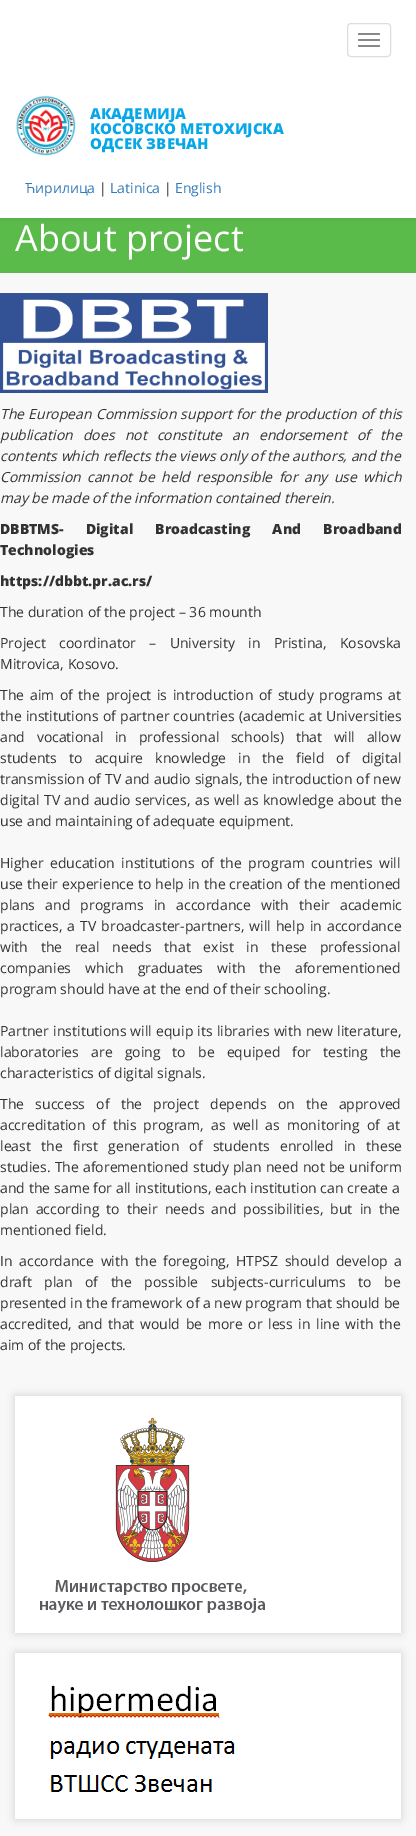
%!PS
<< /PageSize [416 1836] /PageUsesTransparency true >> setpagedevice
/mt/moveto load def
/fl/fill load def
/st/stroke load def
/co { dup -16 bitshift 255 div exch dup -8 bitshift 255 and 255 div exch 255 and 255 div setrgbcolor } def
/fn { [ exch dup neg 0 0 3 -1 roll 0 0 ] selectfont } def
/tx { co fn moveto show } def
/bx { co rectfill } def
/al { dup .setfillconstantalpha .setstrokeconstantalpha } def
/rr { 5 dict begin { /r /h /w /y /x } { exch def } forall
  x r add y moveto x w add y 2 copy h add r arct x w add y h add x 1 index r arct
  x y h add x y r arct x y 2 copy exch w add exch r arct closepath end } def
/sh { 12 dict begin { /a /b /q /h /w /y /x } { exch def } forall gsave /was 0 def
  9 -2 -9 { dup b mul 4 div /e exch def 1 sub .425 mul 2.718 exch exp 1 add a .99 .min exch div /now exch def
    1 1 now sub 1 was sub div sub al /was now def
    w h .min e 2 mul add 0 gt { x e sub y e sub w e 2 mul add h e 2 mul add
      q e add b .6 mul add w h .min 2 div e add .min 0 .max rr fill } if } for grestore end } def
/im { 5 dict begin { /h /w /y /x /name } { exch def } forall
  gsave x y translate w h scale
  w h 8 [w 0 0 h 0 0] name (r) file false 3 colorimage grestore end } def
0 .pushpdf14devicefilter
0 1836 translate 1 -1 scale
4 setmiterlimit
0 0 416 1836 16#F8F8F8 bx
0 218 416 55 16#5ABB4A bx
16#000000 co
0 1 416 218 0 2.5 .07 sh
0 0 416 218 16#FFFFFF bx
16#DDDDDD co
347.5 23.5 43 33 3.5 rr st
16#888888 co
358 33 22 2 1 rr fl
358 39 22 2 1 rr fl
358 45 22 2 1 rr fl
(media/1.raw) 16 95 60 61 im
(media/2.raw) 0 293 268 100 im
16#D2CFCF co
15 1396 386 237 0 4.5 1 sh
15 1396 386 237 16#FFFFFF bx
(media/3.raw) 40 1418 225 196 im
16#D2CFCF co
15 1653 386 166 0 4.5 1 sh
15 1653 386 166 16#FFFFFF bx
(media/4.raw) 48 1685 187 107 im
(АКАДЕМИЈА) 90 119 /OpenSans-ExtraBold 15 16#08A8E8 tx
(КОСОВСКО МЕТОХИЈСКА) 90 134 /OpenSans-ExtraBold 15 16#08A8E8 tx
(ОДСЕК ЗВЕЧАН) 90 149 /OpenSans-ExtraBold 15 16#08A8E8 tx
(Ћирилица) 25 193 /OpenSans-Regular 14 16#337AB7 tx
(|) 99 193 /OpenSans-Regular 14 16#323232 tx
(Latinica) 110 193 /OpenSans-Regular 14 16#337AB7 tx
(|) 164 193 /OpenSans-Regular 14 16#323232 tx
(English) 175 193 /OpenSans-Regular 14 16#337AB7 tx
(About project) 15 251 /OpenSans-Regular 36 16#FFFFFF tx
/OpenSans-Italic 14 fn
16#323232 co
0 419 mt .5 0 32 (The European Commission support for the production of this) widthshow
0 440 mt 6.5 0 32 (publication does not constitute an endorsement of the) widthshow
0 461 mt .1 0 32 (contents which reflects the views only of the authors, and the) widthshow
0 482 mt 2.75 0 32 (Commission cannot be held responsible for any use which) widthshow
(may be made of the information contained therein.) 0 503 /OpenSans-Italic 14 16#323232 tx
/OpenSans-ExtraBold 14 fn
0 534 mt 18.5 0 32 (DBBTMS- Digital Broadcasting And Broadband) widthshow
(Technologies) 0 555 /OpenSans-ExtraBold 14 16#323232 tx
(https://dbbt.pr.ac.rs/) 0 586 /OpenSans-ExtraBold 14 16#323232 tx
(The duration of the project – 36 mounth) 0 617 /OpenSans-Regular 14 16#323232 tx
0 648 mt 9.75 0 32 (Project coordinator – University in Pristina, Kosovska) widthshow
(Mitrovica, Kosovo.) 0 669 /OpenSans-Regular 14 16#323232 tx
0 700 mt 2 0 32 (The aim of the project is introduction of study programs at) widthshow
0 721 mt .5 0 32 (the institutions of partner countries \(academic at Universities) widthshow
0 742 mt 8 0 32 (and vocational in professional schools\) that will allow) widthshow
0 763 mt 8.5 0 32 (students to acquire knowledge in the field of digital) widthshow
0 784 mt .25 0 32 (transmission of TV and audio signals, the introduction of new) widthshow
0 805 mt .75 0 32 (digital TV and audio services, as well as knowledge about the) widthshow
(use and maintaining of adequate equipment.) 0 826 /OpenSans-Regular 14 16#323232 tx
0 868 mt 2.75 0 32 (Higher education institutions of the program countries will) widthshow
0 889 mt .4 0 32 (use their experience to help in the creation of the mentioned) widthshow
0 910 mt 6.5 0 32 (plans and programs in accordance with their academic) widthshow
0 931 mt 1.5 0 32 (practices, a TV broadcaster-partners, will help in accordance) widthshow
0 952 mt 9 0 32 (with the real needs that exist in these professional) widthshow
0 973 mt 10.5 0 32 (companies which graduates with the aforementioned) widthshow
(program should have at the end of their schooling.) 0 994 /OpenSans-Regular 14 16#323232 tx
0 1036 mt .5 0 32 (Partner institutions will equip its libraries with new literature,) widthshow
0 1057 mt 8.5 0 32 (laboratories are going to be equiped for testing the) widthshow
(characteristics of digital signals.) 0 1078 /OpenSans-Regular 14 16#323232 tx
0 1109 mt 7.5 0 32 (The success of the project depends on the approved) widthshow
0 1130 mt 3.5 0 32 (accreditation of this program, as well as monitoring of at) widthshow
0 1151 mt 6.5 0 32 (least the first generation of students enrolled in these) widthshow
0 1172 mt .5 0 32 (studies. The aforementioned study plan need not be uniform) widthshow
0 1193 mt .25 0 32 (and the same for all institutions, each institution can create a) widthshow
0 1214 mt 3.5 0 32 (plan according to their needs and possibilities, but in the) widthshow
(mentioned field.) 0 1235 /OpenSans-Regular 14 16#323232 tx
0 1266 mt 3 0 32 (In accordance with the foregoing, HTPSZ should develop a) widthshow
0 1287 mt 8.75 0 32 (draft plan of the possible subjects-curriculums to be) widthshow
(presented in the framework of a new program that should be) 0 1308 /OpenSans-Regular 14 16#323232 tx
0 1329 mt 2 0 32 (accredited, and that would be more or less in line with the) widthshow
(aim of the projects.) 0 1350 /OpenSans-Regular 14 16#323232 tx
.poppdf14devicefilter showpage
